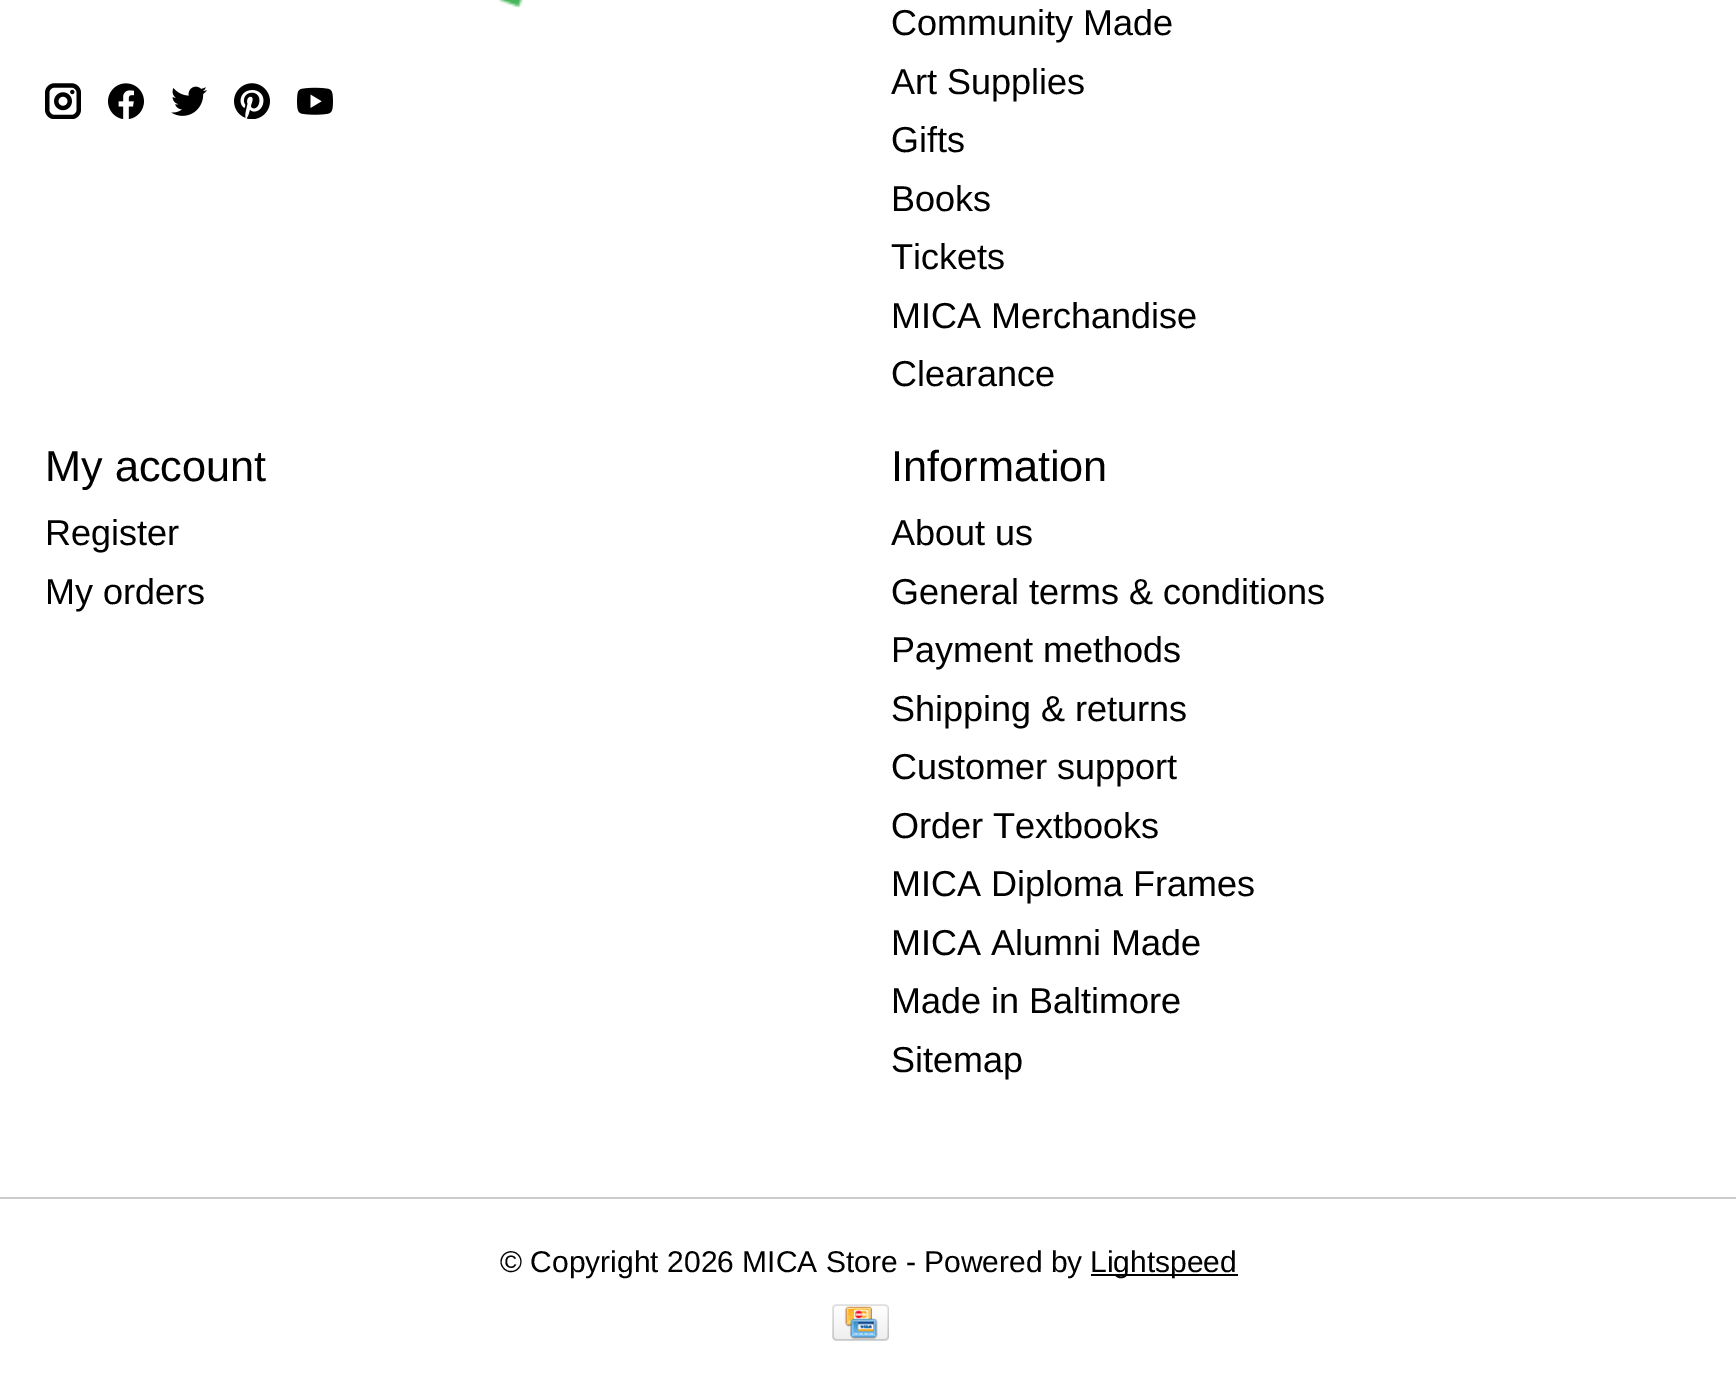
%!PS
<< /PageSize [1736 1387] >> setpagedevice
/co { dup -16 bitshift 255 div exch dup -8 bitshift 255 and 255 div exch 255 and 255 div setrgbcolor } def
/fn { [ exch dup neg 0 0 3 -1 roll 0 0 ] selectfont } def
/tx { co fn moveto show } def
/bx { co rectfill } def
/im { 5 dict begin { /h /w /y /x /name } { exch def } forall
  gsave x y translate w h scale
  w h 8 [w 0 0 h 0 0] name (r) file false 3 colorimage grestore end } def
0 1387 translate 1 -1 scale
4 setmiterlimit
0 0 1736 1387 16#FFFFFF bx
(media/1.raw) 498 0 25 9 im
(media/2.raw) 45 83 36 36 im
(media/3.raw) 108 83 36 36 im
(media/4.raw) 171 86 36 30 im
(media/5.raw) 234 83 36 36 im
(media/6.raw) 297 87 36 28 im
0 1197 1736 2 16#CCCCCC bx
1091 1274 147 2 16#000000 bx
(media/7.raw) 832 1304 57 37 im
(Community Made) 891 35 /Arimo-Regular 36 16#000000 tx
(Art Supplies) 891 94 /Arimo-Regular 36 16#000000 tx
(Gifts) 891 152 /Arimo-Regular 36 16#000000 tx
(Books) 891 211 /Arimo-Regular 36 16#000000 tx
(Tickets) 891 269 /Arimo-Regular 36 16#000000 tx
(MICA Merchandise) 891 328 /Arimo-Regular 36 16#000000 tx
(Clearance) 891 386 /Arimo-Regular 36 16#000000 tx
(My account) 45 481 /Arimo-Regular 43.25 16#000000 tx
(Register) 45 545 /Arimo-Regular 36 16#000000 tx
(My orders) 45 604 /Arimo-Regular 36 16#000000 tx
(Information) 891 481 /Arimo-Regular 43.25 16#000000 tx
(About us) 891 545 /Arimo-Regular 36 16#000000 tx
(General terms & conditions) 891 604 /Arimo-Regular 36 16#000000 tx
(Payment methods) 891 662 /Arimo-Regular 36 16#000000 tx
(Shipping & returns) 891 721 /Arimo-Regular 36 16#000000 tx
(Customer support) 891 779 /Arimo-Regular 36 16#000000 tx
(Order Textbooks) 891 838 /Arimo-Regular 36 16#000000 tx
(MICA Diploma Frames) 891 896 /Arimo-Regular 36 16#000000 tx
(MICA Alumni Made) 891 955 /Arimo-Regular 36 16#000000 tx
(Made in Baltimore) 891 1013 /Arimo-Regular 36 16#000000 tx
(Sitemap) 891 1072 /Arimo-Regular 36 16#000000 tx
(© Copyright 2026 MICA Store - Powered by) 500 1272 /Arimo-Regular 30 16#000000 tx
(Lightspeed) 1090 1272 /Arimo-Regular 30 16#000000 tx
showpage
